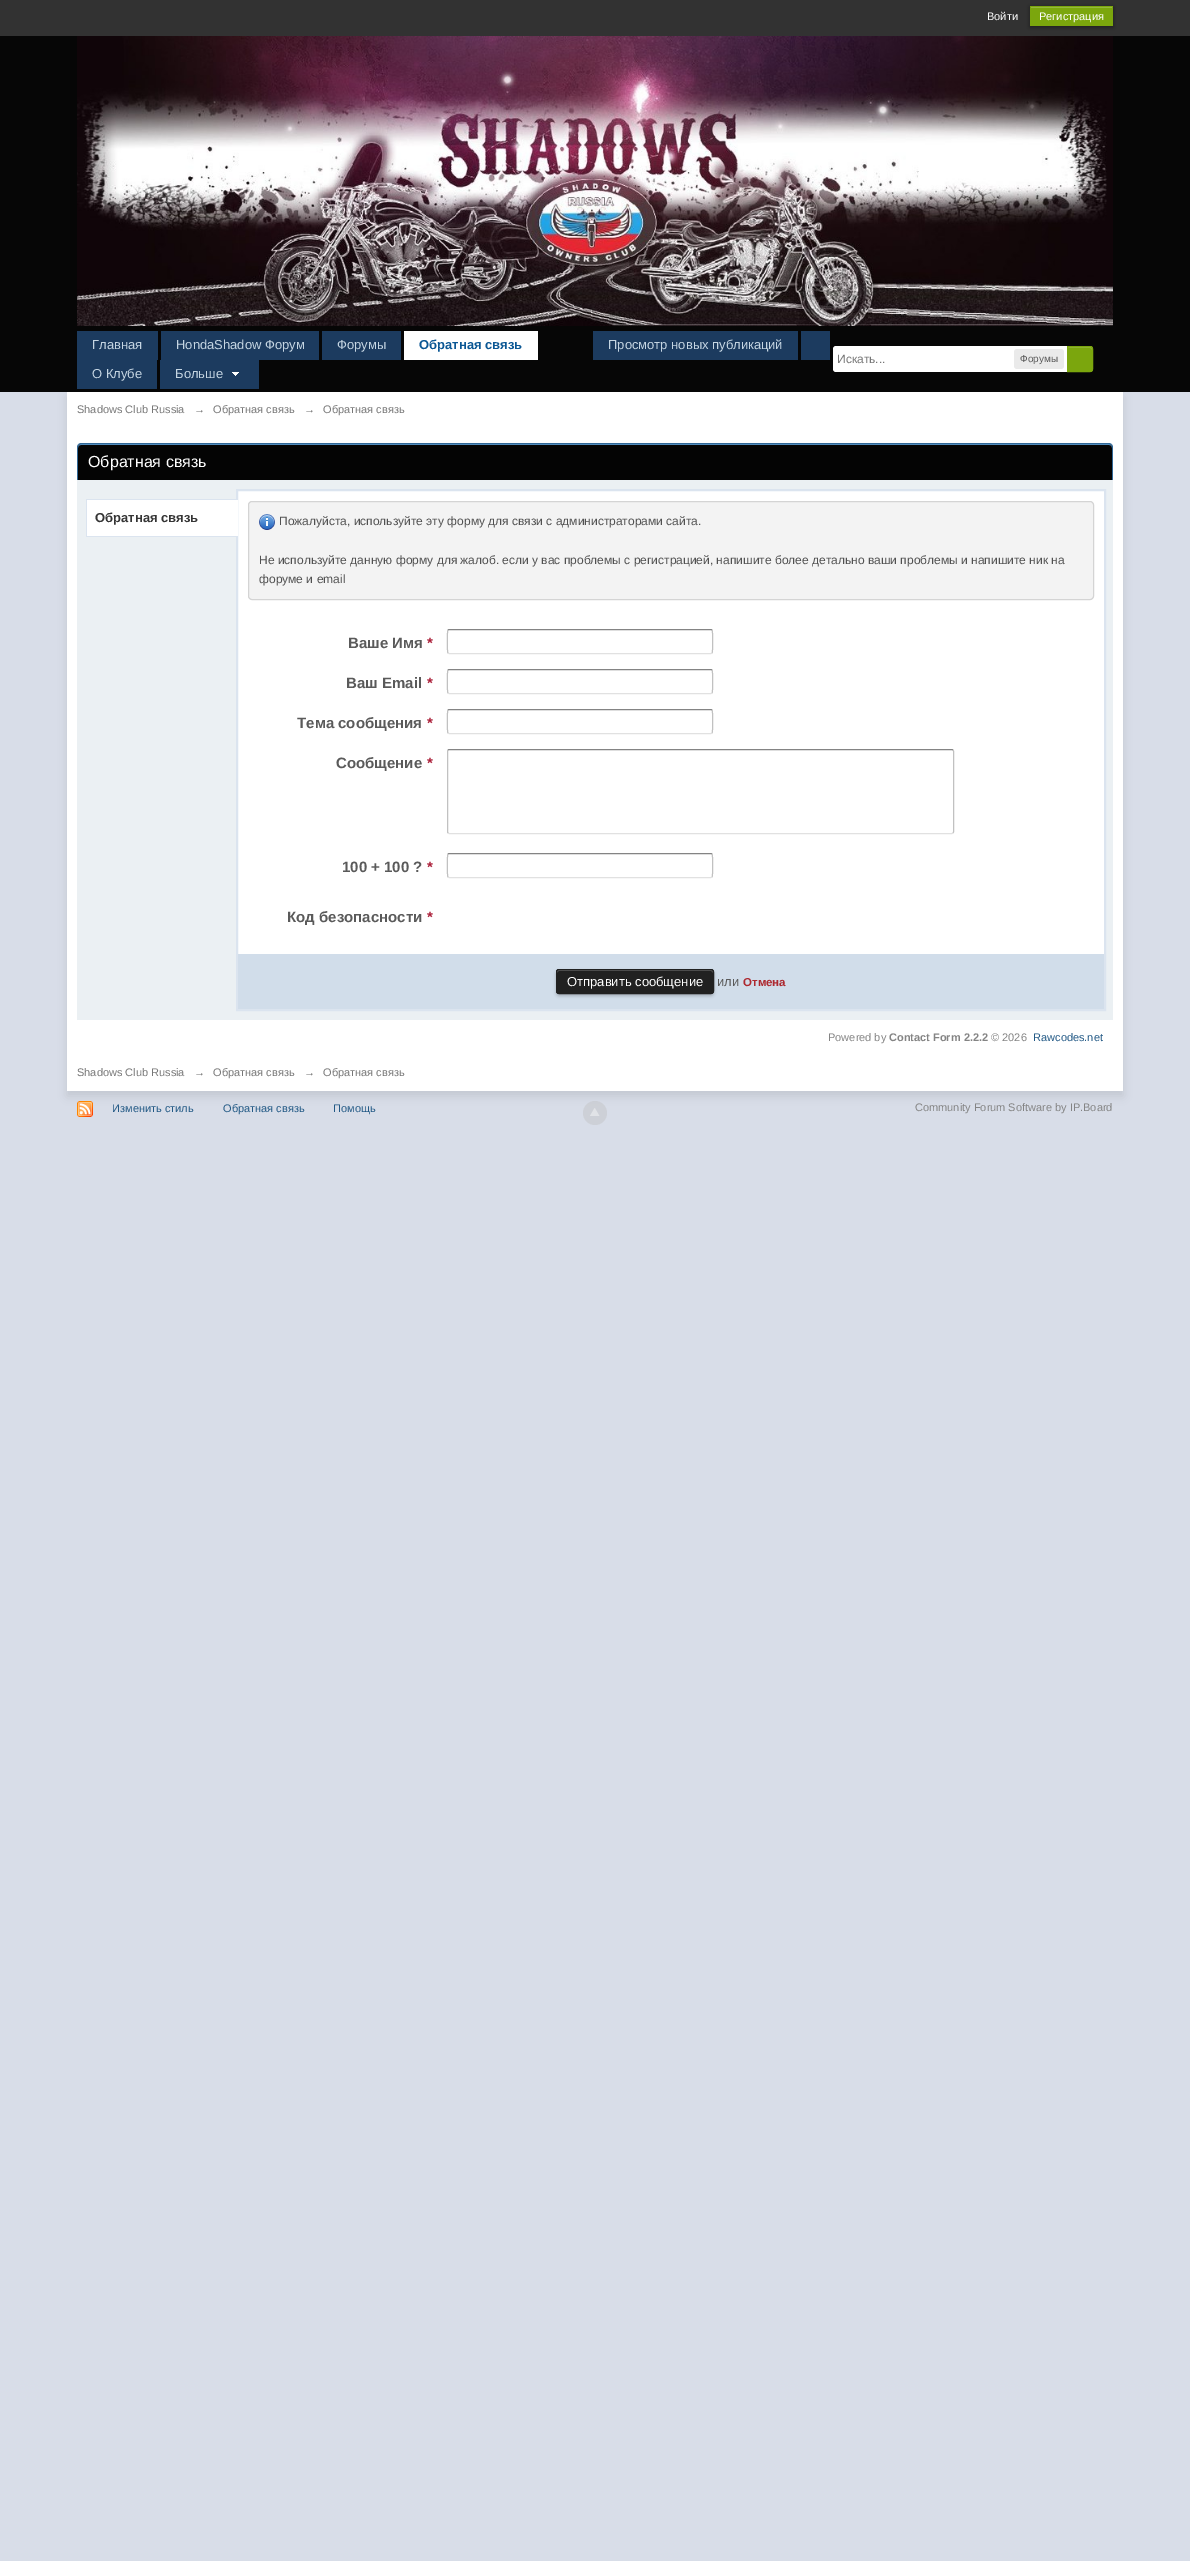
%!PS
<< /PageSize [1190 2561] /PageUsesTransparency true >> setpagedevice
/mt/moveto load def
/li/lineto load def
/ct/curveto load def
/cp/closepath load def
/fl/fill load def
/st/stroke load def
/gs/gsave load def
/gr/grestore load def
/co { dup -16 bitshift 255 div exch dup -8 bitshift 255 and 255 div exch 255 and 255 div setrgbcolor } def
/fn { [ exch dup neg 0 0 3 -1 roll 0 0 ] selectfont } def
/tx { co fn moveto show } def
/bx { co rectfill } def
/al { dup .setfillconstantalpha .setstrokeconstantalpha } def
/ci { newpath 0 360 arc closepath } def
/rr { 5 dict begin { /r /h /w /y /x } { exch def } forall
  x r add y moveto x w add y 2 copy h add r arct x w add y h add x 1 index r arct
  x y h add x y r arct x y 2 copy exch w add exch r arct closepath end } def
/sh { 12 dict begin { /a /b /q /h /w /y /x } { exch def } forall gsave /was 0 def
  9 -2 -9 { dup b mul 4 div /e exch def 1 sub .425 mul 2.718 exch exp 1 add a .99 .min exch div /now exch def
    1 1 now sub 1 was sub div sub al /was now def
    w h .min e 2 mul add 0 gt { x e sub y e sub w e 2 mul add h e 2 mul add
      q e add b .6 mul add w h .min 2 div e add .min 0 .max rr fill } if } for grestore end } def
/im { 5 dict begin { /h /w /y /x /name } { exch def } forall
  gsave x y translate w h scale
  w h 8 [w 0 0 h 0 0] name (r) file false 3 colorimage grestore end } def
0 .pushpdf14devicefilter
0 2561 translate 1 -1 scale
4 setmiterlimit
0 0 1190 2561 16#D8DDE8 bx
0 0 1190 36 16#323232 bx
16#000000 co
1030 7 83 20 0 2 .4 sh
1030 6 83 20 16#7BA60D bx
1031 7 81 1 16#95B83D bx
0 36 1190 356 16#060606 bx
77 331 81 29 16#1C3B5F bx
161 331 158 29 16#1C3B5F bx
322 331 79 29 16#1C3B5F bx
404 331 134 29 16#FFFFFF bx
593 331 205 29 16#1C3B5F bx
801 331 29 29 16#1C3B5F bx
16#000000 co
67 397 1056 699 0 4.5 .1 sh
77 360 80 29 16#1C3B5F bx
160 360 99 29 16#1C3B5F bx
(media/1.raw) 232 372 7 4 im
(media/2.raw) 77 36 1036 290 im
16#FFFFFF co
836 346 mt 1089 346 li 1091 346 1093 348 1093 350 ct 1093 368 li 1093 370 1091 372 1089 372 ct 836 372 li 834.5 372 833 370.5 833 369 ct 833 349 li 833 347.5 834.5 346 836 346 ct cp fl
16#EAEAEA co
1014 349 50 20 3 rr fl
16#7BA60D co
1067 346 mt 1090 346 li 1091.5 346 1093 347.5 1093 349 ct 1093 369 li 1093 370.5 1091.5 372 1090 372 ct 1067 372 li cp fl
16#95B83D co
1068 348 mt 1090 348 li 1091 348 1092 349 1092 350 ct 1092 349 li 1092 348 1091 347 1090 347 ct 1068 347 li cp fl
16#7BA60D co
1067.5 346.5 mt 1090 346.5 li 1091.5 346.5 1092.5 347.5 1092.5 349 ct 1092.5 369 li 1092.5 370.5 1091.5 371.5 1090 371.5 ct 1067.5 371.5 li cp st
67 392 1056 699 16#FFFFFF bx
16#040404 co
81 444 mt 1109 444 li 1110.5 444 1112 445.5 1112 447 ct 1112 480 li 78 480 li 78 447 li 78 445.5 79.5 444 81 444 ct cp fl
16#528CBC co
81 445 mt 1109 445 li 1111 445 1112 446 1112 448 ct 1112 446 1111 444 1109 444 ct 81 444 li 79 444 78 446 78 448 ct 78 446 79 445 81 445 ct cp fl
16#316897 co
81 443 mt 1109 443 li 1111 443 1113 445 1113 447 ct 1113 480 li 77 480 li 77 447 li 77 445 79 443 81 443 ct cp 81 444 mt 1109 444 li 1111 444 1112 445 1112 447 ct 1112 480 li 78 480 li 78 447 li 78 445 79 444 81 444 ct cp eofill
77 480 1036 540 16#EBF0F3 bx
86 499 150 1 16#DBE4EF bx
86 499 1 38 16#DBE4EF bx
87 536 149 1 16#DBE4EF bx
238 491 866 463 16#FFFFFF bx
16#DBE4EF co
236.5 489.5 869 521 rectstroke
237.5 490.5 867 519 rectstroke
87 500 151 36 16#FFFFFF bx
16#F3F3F3 co
248.5 501.5 845 98 3.5 rr gs fl gr
16#D4D4D4 co
st
(media/3.raw) 259 514 16 16 im
16#848484 co
448 630 mt 449 629.5 li 711 629.5 li 712 630 li st
16#C1C1C1 co
712 630 mt 713 631 713 652 712 653 ct st
16#E1E1E1 co
712 653 mt 711 653.5 li 449 653.5 li 448 653 li st
16#C1C1C1 co
448 653 mt 447 652 447 631 448 630 ct st
16#848484 co
448 670 mt 449 669.5 li 711 669.5 li 712 670 li st
16#C1C1C1 co
712 670 mt 713 671 713 692 712 693 ct st
16#E1E1E1 co
712 693 mt 711 693.5 li 449 693.5 li 448 693 li st
16#C1C1C1 co
448 693 mt 447 692 447 671 448 670 ct st
16#848484 co
448 710 mt 449 709.5 li 711 709.5 li 712 710 li st
16#C1C1C1 co
712 710 mt 713 711 713 732 712 733 ct st
16#E1E1E1 co
712 733 mt 711 733.5 li 449 733.5 li 448 733 li st
16#C1C1C1 co
448 733 mt 447 732 447 711 448 710 ct st
16#848484 co
448 750 mt 449 749.5 li 952 749.5 li 953 750 li st
16#C1C1C1 co
953 750 mt 953.5 751 li 953.5 832 li 953 833 li st
16#E1E1E1 co
953 833 mt 952 833.5 li 449 833.5 li 448 833 li st
16#C1C1C1 co
448 833 mt 447.5 832 li 447.5 751 li 448 750 li st
16#848484 co
448 854 mt 449 853.5 li 711 853.5 li 712 854 li st
16#C1C1C1 co
712 854 mt 713 855 713 876 712 877 ct st
16#E1E1E1 co
712 877 mt 711 877.5 li 449 877.5 li 448 877 li st
16#C1C1C1 co
448 877 mt 447 876 447 855 448 854 ct st
238 954 866 55 16#D1DDEA bx
16#000000 co
556 971 158 25 3 1.5 .2 sh
16#212121 co
556 969 158 25 3 rr fl
16#5C5C5C co
559 971 mt 711 971 li 712 971 713 972 713 973 ct 713 972 713 970 711 970 ct 559 970 li 557 970 557 972 557 973 ct 557 972 558 971 559 971 ct cp fl
16#212121 co
556.5 969.5 157 24 2.5 rr st
(media/4.raw) 77 1101 16 16 im
0.4 al
16#BDBDBD co
595 1113 12 ci fl
1 al
(media/5.raw) 590 1108 10 8 im
(Войти) 987 20 /LiberationSans-Regular 11 16#FFFFFF tx
(Регистрация) 1039 20 /LiberationSans-Regular 11 16#FFFFFF tx
(Главная) 92 349 /LiberationSans-Regular 13 16#C5D5E2 tx
(HondaShadow Форум) 176 349 /LiberationSans-Regular 13 16#C5D5E2 tx
(Форумы) 337 349 /LiberationSans-Regular 13 16#C5D5E2 tx
(Обратная связь) 419 349 /LiberationSans-Bold 13 16#0B5794 tx
(Просмотр новых публикаций) 608 349 /LiberationSans-Regular 13 16#C5D5E2 tx
(О Клубе) 92 378 /LiberationSans-Regular 13 16#C5D5E2 tx
(Больше) 175 378 /LiberationSans-Regular 13 16#C5D5E2 tx
(Искать...) 837 363 /LiberationSans-Regular 12 16#777777 tx
(Форумы) 1020 362 /LiberationSans-Regular 10 16#5A5A5A tx
(Shadows Club Russia) 77 413 /LiberationSans-Regular 11 16#777777 tx
(→) 194 413 /LiberationSans-Regular 11 16#777777 tx
(Обратная связь) 213 413 /LiberationSans-Regular 11 16#777777 tx
(→) 304 413 /LiberationSans-Regular 11 16#777777 tx
(Обратная связь) 323 413 /LiberationSans-Regular 11 16#777777 tx
(Обратная связь) 88 467 /LiberationSans-Regular 16 16#FFFFFF tx
(Обратная связь) 95 522 /LiberationSans-Bold 13 16#353535 tx
(Пожалуйста, используйте эту форму для связи с администраторами сайта.) 279 525 /LiberationSans-Regular 12 16#515151 tx
(Не используйте данную форму для жалоб. если у вас проблемы с регистрацией, напишите более детально ваши проблемы и напишите ник на) 259 564 /LiberationSans-Regular 12 16#515151 tx
(форуме и email) 259 583 /LiberationSans-Regular 12 16#515151 tx
(Ваше Имя) 348 648 /LiberationSans-Bold 15 16#5A5A5A tx
(*) 427 648 /LiberationSans-Bold 15 16#AB1F39 tx
(Ваш Email) 346 688 /LiberationSans-Bold 15 16#5A5A5A tx
(*) 427 688 /LiberationSans-Bold 15 16#AB1F39 tx
(Тема сообщения) 297 728 /LiberationSans-Bold 15 16#5A5A5A tx
(*) 427 728 /LiberationSans-Bold 15 16#AB1F39 tx
(Сообщение) 336 768 /LiberationSans-Bold 15 16#5A5A5A tx
(*) 427 768 /LiberationSans-Bold 15 16#AB1F39 tx
(100 + 100 ?) 342 872 /LiberationSans-Bold 15 16#5A5A5A tx
(*) 427 872 /LiberationSans-Bold 15 16#AB1F39 tx
(Код безопасности) 287 922 /LiberationSans-Bold 15 16#5A5A5A tx
(*) 427 922 /LiberationSans-Bold 15 16#AB1F39 tx
(Отправить сообщение) 567 986 /LiberationSans-Regular 13 16#FFFFFF tx
(или) 717 986 /LiberationSans-Regular 13 16#5A5A5A tx
(Отмена) 743 986 /LiberationSans-Bold 11.5 16#AD2930 tx
(Powered by) 828 1041 /LiberationSans-Regular 11 16#848484 tx
(Contact Form 2.2.2) 889 1041 /LiberationSans-Bold 11 16#848484 tx
(© 2026) 991 1041 /LiberationSans-Regular 11 16#848484 tx
(Rawcodes.net) 1033 1041 /LiberationSans-Regular 11 16#225985 tx
(Shadows Club Russia) 77 1076 /LiberationSans-Regular 11 16#777777 tx
(→) 194 1076 /LiberationSans-Regular 11 16#777777 tx
(Обратная связь) 213 1076 /LiberationSans-Regular 11 16#777777 tx
(→) 304 1076 /LiberationSans-Regular 11 16#777777 tx
(Обратная связь) 323 1076 /LiberationSans-Regular 11 16#777777 tx
(Изменить стиль) 112 1112 /LiberationSans-Regular 11 16#225985 tx
(Обратная связь) 223 1112 /LiberationSans-Regular 11 16#225985 tx
(Помощь) 333 1112 /LiberationSans-Regular 11 16#225985 tx
(Community Forum Software by IP.Board) 915 1111 /LiberationSans-Regular 11 16#848484 tx
.poppdf14devicefilter showpage
